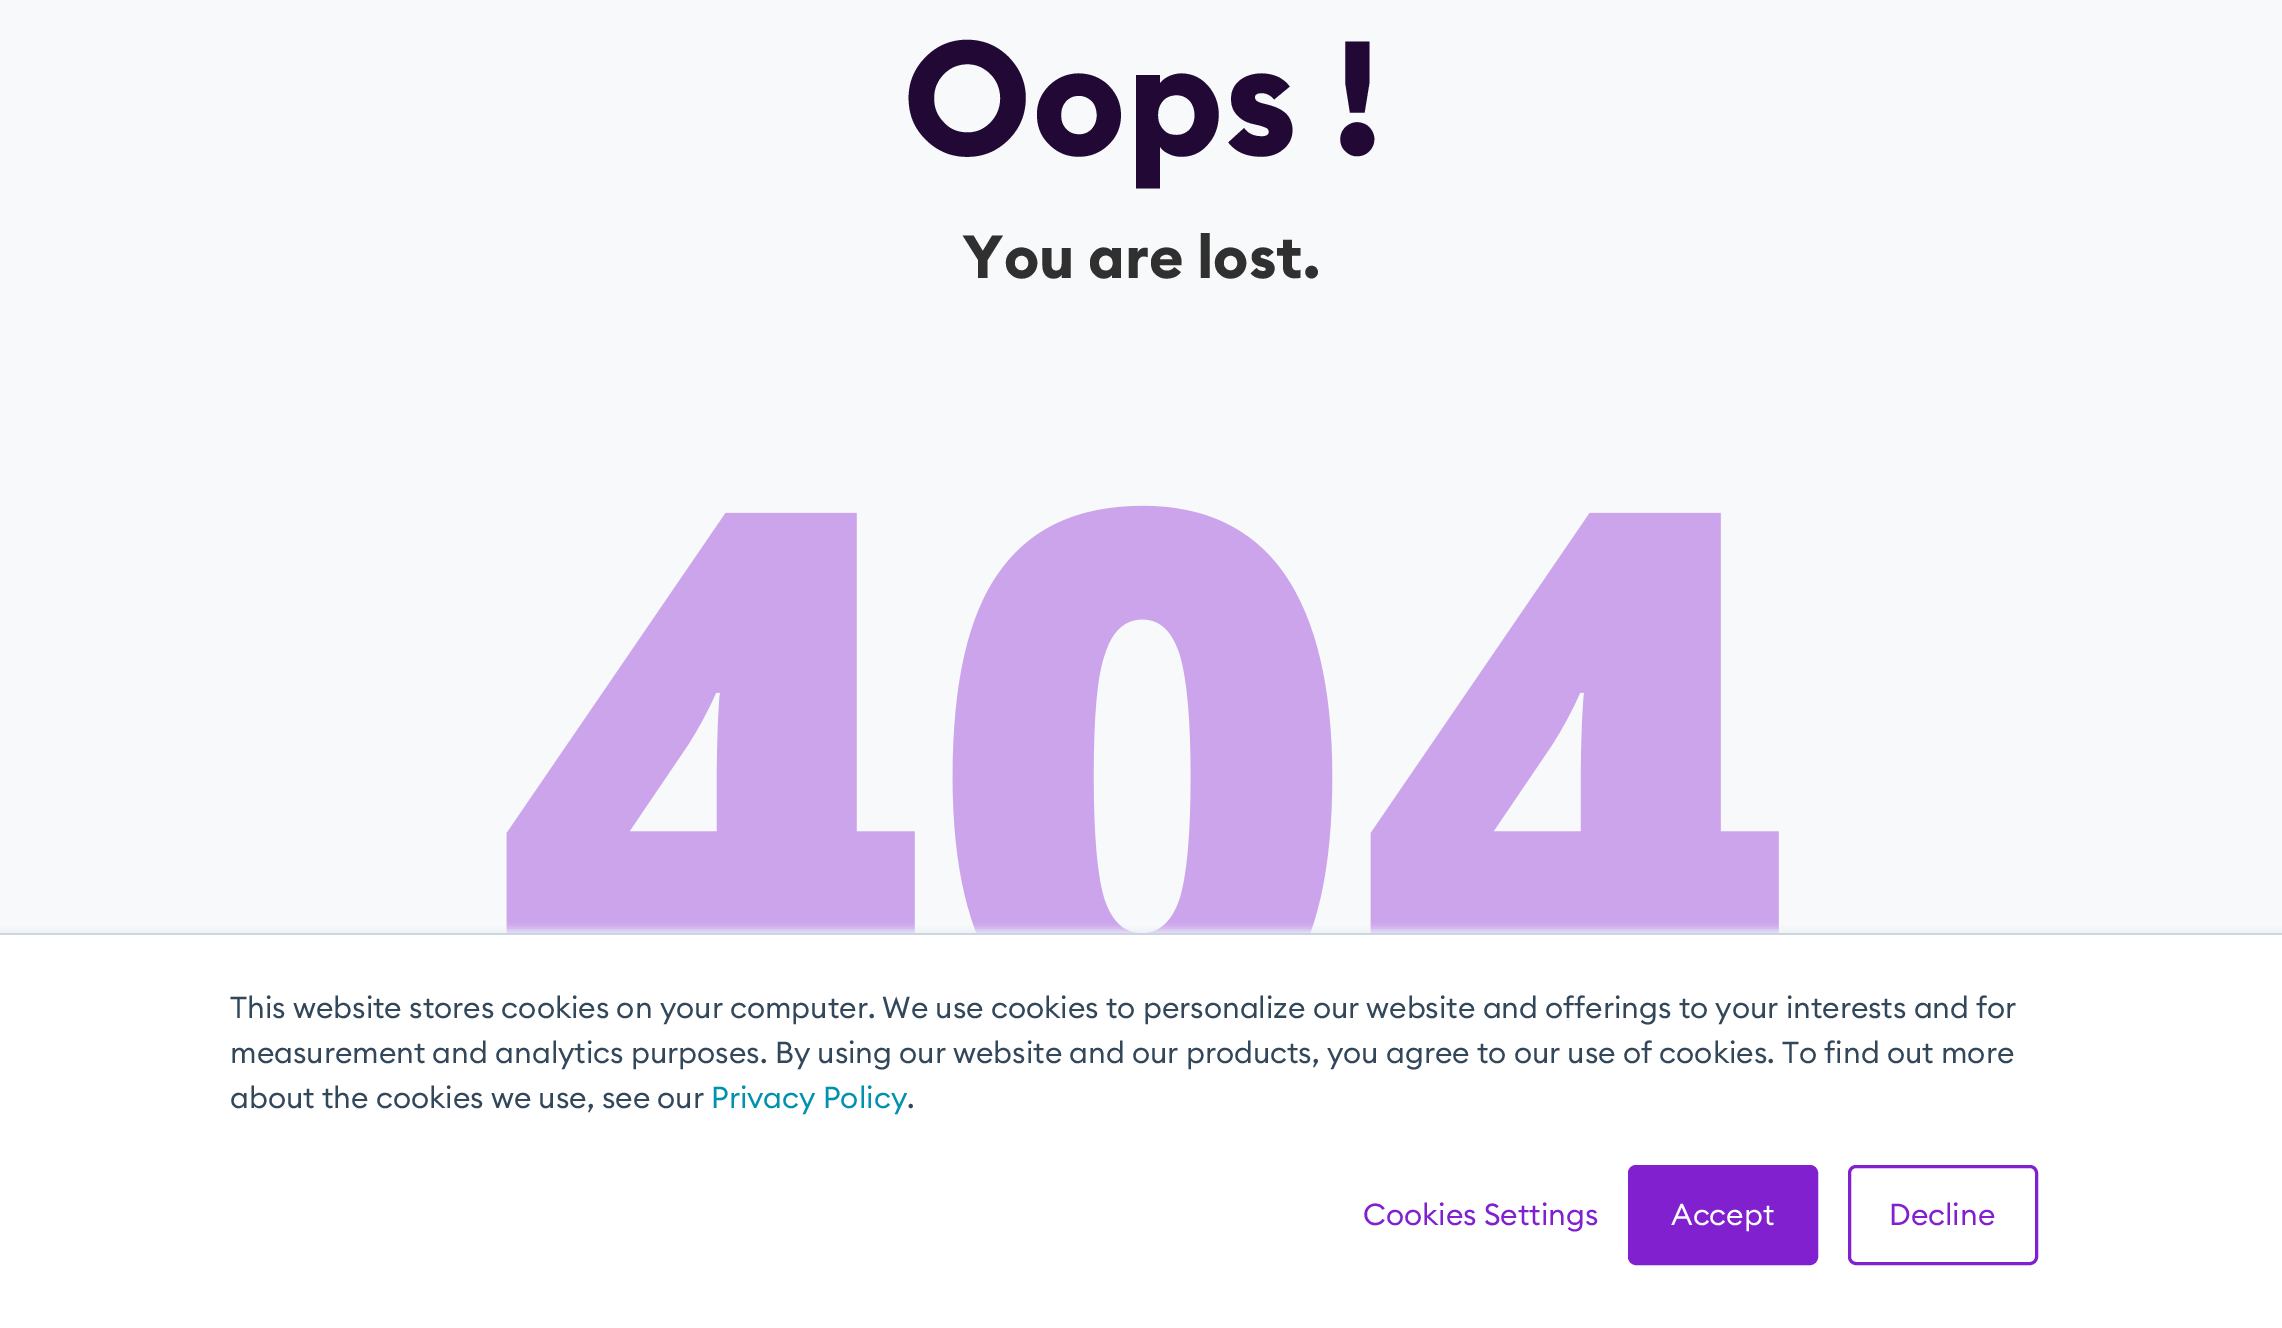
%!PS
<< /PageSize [2282 1328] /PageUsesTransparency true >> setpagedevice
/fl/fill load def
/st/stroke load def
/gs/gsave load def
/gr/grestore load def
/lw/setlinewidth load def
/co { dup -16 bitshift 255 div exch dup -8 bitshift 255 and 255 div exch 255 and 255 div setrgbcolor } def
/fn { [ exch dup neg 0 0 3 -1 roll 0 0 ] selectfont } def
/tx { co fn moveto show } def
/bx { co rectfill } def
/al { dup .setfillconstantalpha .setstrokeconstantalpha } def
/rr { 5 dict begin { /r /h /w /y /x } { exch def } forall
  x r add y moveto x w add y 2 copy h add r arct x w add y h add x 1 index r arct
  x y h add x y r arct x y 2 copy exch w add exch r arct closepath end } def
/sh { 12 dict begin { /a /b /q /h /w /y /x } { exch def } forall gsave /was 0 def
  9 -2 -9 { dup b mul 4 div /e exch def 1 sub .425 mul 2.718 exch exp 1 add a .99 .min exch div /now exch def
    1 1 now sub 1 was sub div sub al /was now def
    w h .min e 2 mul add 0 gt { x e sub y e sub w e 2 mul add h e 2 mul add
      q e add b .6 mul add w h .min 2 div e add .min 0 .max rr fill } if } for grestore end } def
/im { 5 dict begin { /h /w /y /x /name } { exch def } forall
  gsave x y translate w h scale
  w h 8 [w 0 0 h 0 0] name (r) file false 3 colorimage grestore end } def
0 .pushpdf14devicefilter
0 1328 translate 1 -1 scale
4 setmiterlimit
0 0 2282 1328 16#F8F9FA bx
(media/1.raw) 506 505 1273 428 im
16#EAF0F6 co
0 930 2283 398 0 4 1 sh
0 933 2282 2 16#CBD6E2 bx
0 935 2282 393 16#FFFFFF bx
16#8020CF co
1629.5 1166.5 187 97 6.5 rr gs fl gr
3 lw
st
1849.5 1166.5 187 97 6.5 rr st
(Oops !) 903 155 /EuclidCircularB-Bold 160 16#210835 tx
(You are lost.) 962 278 /EuclidCircularB-Bold 60 16#303030 tx
(This website stores cookies on your computer. We use cookies to personalize our website and offerings to your interests and for) 230 1018 /EuclidCircularB-Regular 30 16#33475B tx
(measurement and analytics purposes. By using our website and our products, you agree to our use of cookies. To find out more) 230 1063 /EuclidCircularB-Regular 30 16#33475B tx
(about the cookies we use, see our) 230 1108 /EuclidCircularB-Regular 30 16#33475B tx
(Privacy Policy) 711 1108 /EuclidCircularB-Regular 30 16#0091AE tx
(.) 907 1108 /EuclidCircularB-Regular 30 16#33475B tx
(Cookies Settings) 1363 1225 /EuclidCircularB-Regular 30 16#8020CF tx
(Accept) 1671 1225 /EuclidCircularB-Regular 30 16#FFFFFF tx
(Decline) 1889 1225 /EuclidCircularB-Regular 30 16#8020CF tx
.poppdf14devicefilter showpage
